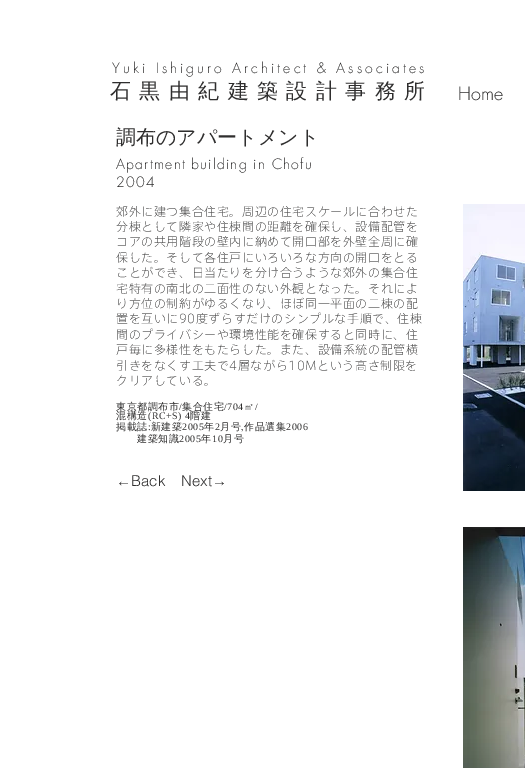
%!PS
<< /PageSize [525 768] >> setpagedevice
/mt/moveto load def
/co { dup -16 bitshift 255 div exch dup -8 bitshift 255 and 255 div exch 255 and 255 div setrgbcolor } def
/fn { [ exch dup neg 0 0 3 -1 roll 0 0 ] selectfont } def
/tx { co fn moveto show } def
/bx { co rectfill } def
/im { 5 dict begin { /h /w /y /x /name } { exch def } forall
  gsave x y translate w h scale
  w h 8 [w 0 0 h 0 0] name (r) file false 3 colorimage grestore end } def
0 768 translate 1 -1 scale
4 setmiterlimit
0 0 525 768 16#FFFFFF bx
(media/1.raw) 463 204 62 287 im
(media/2.raw) 463 527 62 241 im
/futura-Light 14 fn
16#2F2E2E co
112 73 mt 3.1 0 (Yuki Ishiguro Architect & Associates) ashow
/WenQuanYiZenHei-Medium 21 fn
110 98 mt 8.4 0 (石黒由紀建築設計事務所) ashow
(Home) 458 100 /futura-Light 18 16#2F2E2E tx
(調布のアパートメント) 116 144 /WenQuanYiZenHei-Medium 20 16#2F2E2E tx
/futura-Light 14 fn
116 169 mt 1.25 0 (Apartment building in Chofu) ashow
116 187 mt 1.25 0 (2004) ashow
/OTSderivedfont-ExtraLight 12 fn
116 216 mt .6 0 (郊外に建つ集合住宅。周辺の住宅スケールに合わせた) ashow
116 231 mt .6 0 (分棟として隣家や住棟間の距離を確保し、設備配管を) ashow
116 246 mt .6 0 (コアの共用階段の壁内に納めて開口部を外壁全周に確) ashow
116 262 mt .6 0 (保した。そして各住戸にいろいろな方向の開口をとる) ashow
116 277 mt .6 0 (ことができ、日当たりを分け合うような郊外の集合住) ashow
116 293 mt .6 0 (宅特有の南北の二面性のない外観となった。それによ) ashow
116 308 mt .6 0 (り方位の制約がゆるくなり、ほぼ同一平面の二棟の配) ashow
116 323 mt .6 0 (置を互いに90度ずらすだけのシンプルな手順で、住棟) ashow
116 339 mt .6 0 (間のプライバシーや環境性能を確保すると同時に、住) ashow
116 354 mt .6 0 (戸毎に多様性をもたらした。また、設備系統の配管横) ashow
116 370 mt .6 0 (引きをなくす工夫で4層ながら10Mという高さ制限を) ashow
116 385 mt .6 0 (クリアしている。) ashow
/WenQuanYiZenHei-Medium 10 fn
116 410 mt .5 0 (東京都調布市 集合住宅) ashow
/LiberationSerif-Regular 10 fn
179 410 mt .5 0 (/) ashow
224 410 mt .5 0 (/704) ashow
/WenQuanYiZenHei-Medium 10 fn
244 410 mt .5 0 (㎡) ashow
/LiberationSerif-Regular 10 fn
255 410 mt .5 0 (/) ashow
/WenQuanYiZenHei-Medium 10 fn
116 419 mt .5 0 (混構造) ashow
/LiberationSerif-Regular 10 fn
148 419 mt .5 0 (\(RC+S\) 4) ashow
/WenQuanYiZenHei-Medium 10 fn
190 419 mt .5 0 (階建) ashow
116 430 mt .5 0 (掲載誌 新建築) ashow
/LiberationSerif-Regular 10 fn
182 430 mt .5 0 (2005) ashow
/WenQuanYiZenHei-Medium 10 fn
204 430 mt .5 0 (年) ashow
/LiberationSerif-Regular 10 fn
215 430 mt .5 0 (2) ashow
/WenQuanYiZenHei-Medium 10 fn
220 430 mt .5 0 (月号) ashow
244 430 mt .5 0 (作品選集) ashow
/LiberationSerif-Regular 10 fn
286 430 mt .5 0 (2006) ashow
148 430 mt .5 0 (:) ashow
241 430 mt .5 0 (,) ashow
/WenQuanYiZenHei-Medium 10 fn
137 442 mt .5 0 (建築知識) ashow
/LiberationSerif-Regular 10 fn
179 442 mt .5 0 (2005) ashow
/WenQuanYiZenHei-Medium 10 fn
201 442 mt .5 0 (年) ashow
/LiberationSerif-Regular 10 fn
212 442 mt .5 0 (10) ashow
/WenQuanYiZenHei-Medium 10 fn
223 442 mt .5 0 (月号) ashow
(←) 116 486 /LiberationSans-Regular 15 16#2F2E2E tx
(Back) 131 486 /helvetica-Light 15 16#2F2E2E tx
(Next) 181 486 /helvetica-Light 15 16#2F2E2E tx
(→) 212 486 /LiberationSans-Regular 15 16#2F2E2E tx
showpage
